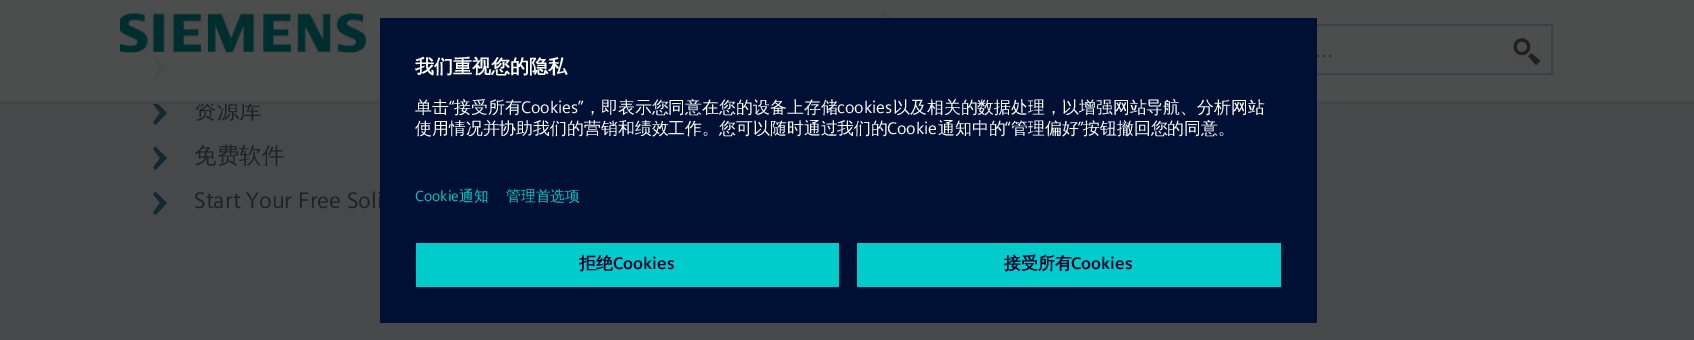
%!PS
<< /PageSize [1694 340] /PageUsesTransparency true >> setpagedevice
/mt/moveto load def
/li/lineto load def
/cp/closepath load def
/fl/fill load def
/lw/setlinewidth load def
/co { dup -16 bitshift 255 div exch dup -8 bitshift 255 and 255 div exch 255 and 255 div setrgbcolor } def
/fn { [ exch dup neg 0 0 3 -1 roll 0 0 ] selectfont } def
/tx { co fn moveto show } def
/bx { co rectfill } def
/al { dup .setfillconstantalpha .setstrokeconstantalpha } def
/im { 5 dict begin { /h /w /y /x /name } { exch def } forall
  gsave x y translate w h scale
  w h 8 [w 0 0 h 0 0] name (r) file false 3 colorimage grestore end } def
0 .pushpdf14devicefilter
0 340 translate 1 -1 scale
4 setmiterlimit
0 0 1694 340 16#47484A bx
16#142832 co
883 10 mt 880.5 12.5 li 887.5 21.5 li 880.5 31 li 883 33.5 li 894.5 21.5 li cp fl
155.5 10 mt 153 12.5 li 160 21.5 li 153 31 li 155.5 33.5 li 167 21.5 li cp fl
155.5 56.5 mt 153 59 li 160 68 li 153 77.5 li 155.5 80 li 167 68 li cp fl
155.5 101.5 mt 153 104 li 160 113 li 153 122.5 li 155.5 125 li 167 113 li cp fl
155.5 146.5 mt 153 149 li 160 158 li 153 167.5 li 155.5 170 li 167 158 li cp fl
155.5 191.5 mt 153 194 li 160 203 li 153 212.5 li 155.5 215 li 167 203 li cp fl
(资源库) 194 118 /WenQuanYiZenHei-Medium 22.5 16#1B2227 tx
0.9 al
0 0 1694 101 16#4D4D4D bx
1 al
16#3E4144 co
2 lw
1209 25 343 49 rectstroke
(media/2.raw) 1513 38 28 28 im
(…) 1315 57 /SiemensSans-Regular 21 16#2E2E2E tx
(media/1.raw) 120 13 246 40 im
0 101 1694 3 16#434547 bx
(免费软件) 194 163 /WenQuanYiZenHei-Medium 22.5 16#1B2227 tx
(Start Your Free Soli) 194 208 /SiemensSans-Regular 22.5 16#1B2227 tx
380 18 937 305 16#001034 bx
(我们重视您的隐私) 415 73 /WenQuanYiZenHei-Bold 19 16#FFFFFF tx
(单击) 415 113 /WenQuanYiZenHei-Medium 16.9 16#FFFFFF tx
(“) 449 113 /SiemensSans-Regular 16.9 16#FFFFFF tx
(接受所有) 454 113 /WenQuanYiZenHei-Medium 16.9 16#FFFFFF tx
(Cookies”) 521 113 /SiemensSans-Regular 16.9 16#FFFFFF tx
(，即表示您同意在您的设备上存储) 584 113 /WenQuanYiZenHei-Medium 16.9 16#FFFFFF tx
(cookies) 837 113 /SiemensSans-Regular 16.9 16#FFFFFF tx
(以及相关的数据处理，以增强网站导航、分析网站) 893 113 /WenQuanYiZenHei-Medium 16.9 16#FFFFFF tx
(使用情况并协助我们的营销和绩效工作。您可以随时通过我们的) 415 134 /WenQuanYiZenHei-Medium 16.9 16#FFFFFF tx
(Cookie) 887 134 /SiemensSans-Regular 16.9 16#FFFFFF tx
(通知中的) 938 134 /WenQuanYiZenHei-Medium 16.9 16#FFFFFF tx
(“) 1005 134 /SiemensSans-Regular 16.9 16#FFFFFF tx
(管理偏好) 1011 134 /WenQuanYiZenHei-Medium 16.9 16#FFFFFF tx
(”) 1078 134 /SiemensSans-Regular 16.9 16#FFFFFF tx
(按钮撤回您的同意。) 1083 134 /WenQuanYiZenHei-Medium 16.9 16#FFFFFF tx
(Cookie) 415 201 /SiemensSans-Regular 14.75 16#00CCCC tx
(通知) 459 201 /WenQuanYiZenHei-Medium 14.75 16#00CCCC tx
(管理首选项) 506 201 /WenQuanYiZenHei-Medium 14.75 16#00CCCC tx
416 243 423 44 16#00CCCC bx
(拒绝) 579 269 /WenQuanYiZenHei-Bold 16.9 16#000028 tx
(Cookies) 613 269 /SiemensSans-Bold 16.9 16#000028 tx
857 243 424 44 16#00CCCC bx
(接受所有) 1004 269 /WenQuanYiZenHei-Bold 16.9 16#000028 tx
(Cookies) 1071 269 /SiemensSans-Bold 16.9 16#000028 tx
.poppdf14devicefilter showpage
